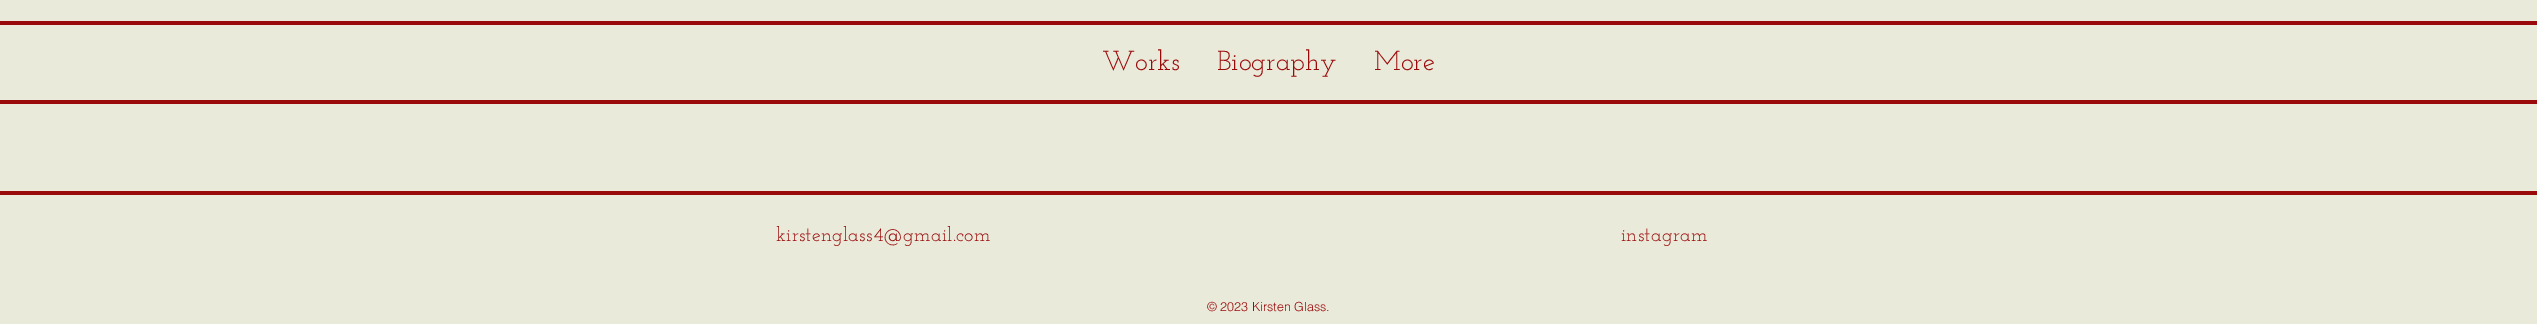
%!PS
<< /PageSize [2537 324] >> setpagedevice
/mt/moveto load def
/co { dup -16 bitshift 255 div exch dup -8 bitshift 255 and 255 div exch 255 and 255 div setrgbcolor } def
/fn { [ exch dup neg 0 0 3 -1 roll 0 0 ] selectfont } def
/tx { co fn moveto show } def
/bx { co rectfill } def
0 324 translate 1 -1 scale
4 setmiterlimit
0 0 2537 324 16#EAEADA bx
0 21 2537 4 16#9A0A0A bx
0 100 2537 4 16#9A0A0A bx
0 191 2537 4 16#9A0A0A bx
(Works) 1102 70 /JosefinSlab-Regular 27.5 16#9A0A0A tx
(Biography) 1217 70 /JosefinSlab-Regular 27.5 16#9A0A0A tx
(More) 1374 70 /JosefinSlab-Regular 27.5 16#9A0A0A tx
/JosefinSlab-Regular 20 fn
776 241 mt .2 0 (kirstenglass4@gmail.com) ashow
1621 241 mt .2 0 (instagram) ashow
(© 2023 Kirsten Glass.) 1207 311 /helvetica-Light 12.5 16#9A0A0A tx
showpage
